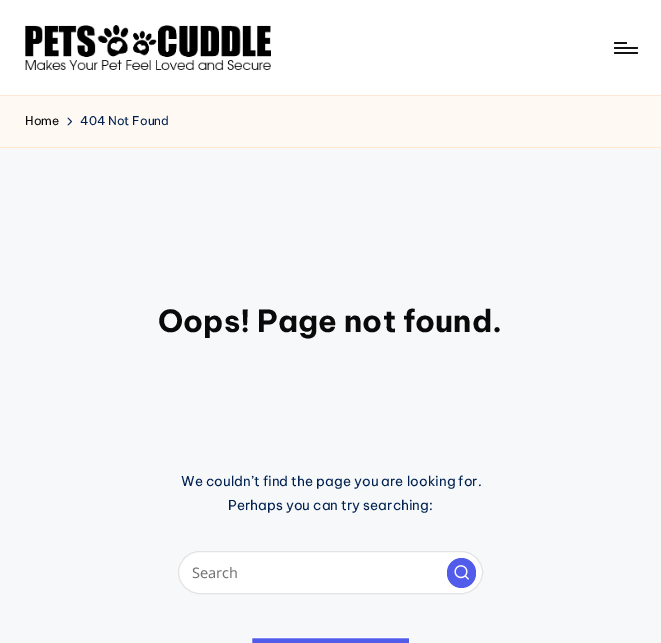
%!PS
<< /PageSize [661 643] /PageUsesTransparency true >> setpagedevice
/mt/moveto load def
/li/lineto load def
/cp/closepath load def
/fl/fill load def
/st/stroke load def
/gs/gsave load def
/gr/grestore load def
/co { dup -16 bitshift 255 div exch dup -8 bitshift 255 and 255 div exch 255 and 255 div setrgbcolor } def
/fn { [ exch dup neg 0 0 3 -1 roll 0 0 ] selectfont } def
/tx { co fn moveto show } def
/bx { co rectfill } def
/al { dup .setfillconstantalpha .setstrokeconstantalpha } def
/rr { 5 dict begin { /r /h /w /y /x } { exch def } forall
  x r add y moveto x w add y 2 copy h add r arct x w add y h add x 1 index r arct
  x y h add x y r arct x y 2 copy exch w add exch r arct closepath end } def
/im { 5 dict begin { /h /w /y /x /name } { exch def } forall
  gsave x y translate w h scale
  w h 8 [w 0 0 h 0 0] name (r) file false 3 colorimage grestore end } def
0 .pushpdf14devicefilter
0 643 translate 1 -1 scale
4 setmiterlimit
0 0 661 643 16#F7F8F9 bx
0 0 661 95 16#FFFFFF bx
(media/1.raw) 25 25 246 45 im
16#131315 co
614 47 24 2 1 rr fl
614 42 13 2 1 rr fl
614 52 24 2 1 rr fl
0 96 661 51 16#FFF9F3 bx
0 95 661 1 16#FFE7D2 bx
0 147 661 1 16#FFE7D2 bx
(media/2.raw) 67 117 5 9 im
16#FFFFFF co
178 551 305 43 21.5 rr fl
0.4 al
16#B9B9B9 co
178.5 551.5 304 42 21 rr st
1 al
16#525CEB co
447 558 29 30 14.5 rr fl
(media/3.raw) 454 565 15 15 im
251.5 637.5 mt 409.5 637.5 li 409.5 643.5 li 251.5 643.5 li cp gs fl gr
16#FFFFFF co
st
(Home) 25 125 /BeVietnamPro-Regular 12 16#0A0A0A tx
(404 Not Found) 80 125 /BeVietnamPro-Regular 12 16#002050 tx
(Oops! Page not found.) 158 332 /BeVietnamPro-Bold 30.5 16#0A0A0A tx
(We couldn’t find the page you are looking for.) 181 486 /BeVietnamPro-Regular 13.6 16#002050 tx
(Perhaps you can try searching:) 228 510 /BeVietnamPro-Regular 13.6 16#002050 tx
(Search) 192 578 /NotoSans-Regular 14.5 16#757575 tx
.poppdf14devicefilter showpage
